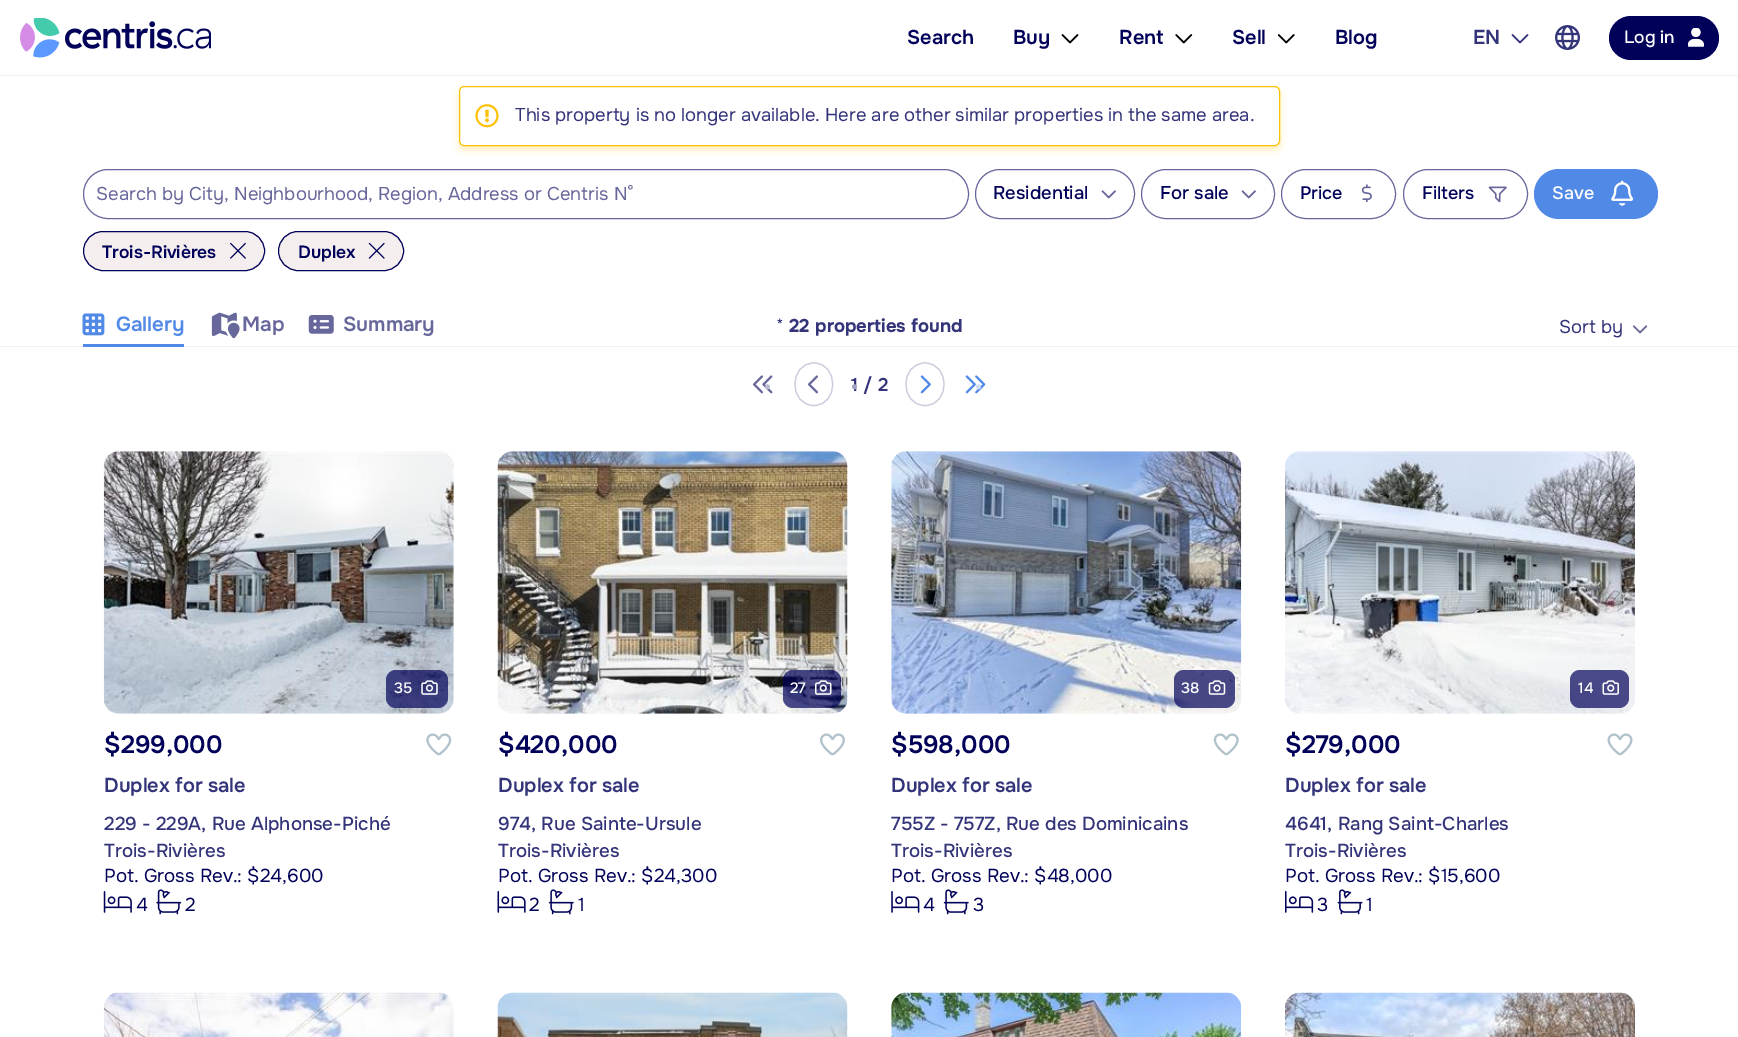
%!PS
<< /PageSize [1738 1037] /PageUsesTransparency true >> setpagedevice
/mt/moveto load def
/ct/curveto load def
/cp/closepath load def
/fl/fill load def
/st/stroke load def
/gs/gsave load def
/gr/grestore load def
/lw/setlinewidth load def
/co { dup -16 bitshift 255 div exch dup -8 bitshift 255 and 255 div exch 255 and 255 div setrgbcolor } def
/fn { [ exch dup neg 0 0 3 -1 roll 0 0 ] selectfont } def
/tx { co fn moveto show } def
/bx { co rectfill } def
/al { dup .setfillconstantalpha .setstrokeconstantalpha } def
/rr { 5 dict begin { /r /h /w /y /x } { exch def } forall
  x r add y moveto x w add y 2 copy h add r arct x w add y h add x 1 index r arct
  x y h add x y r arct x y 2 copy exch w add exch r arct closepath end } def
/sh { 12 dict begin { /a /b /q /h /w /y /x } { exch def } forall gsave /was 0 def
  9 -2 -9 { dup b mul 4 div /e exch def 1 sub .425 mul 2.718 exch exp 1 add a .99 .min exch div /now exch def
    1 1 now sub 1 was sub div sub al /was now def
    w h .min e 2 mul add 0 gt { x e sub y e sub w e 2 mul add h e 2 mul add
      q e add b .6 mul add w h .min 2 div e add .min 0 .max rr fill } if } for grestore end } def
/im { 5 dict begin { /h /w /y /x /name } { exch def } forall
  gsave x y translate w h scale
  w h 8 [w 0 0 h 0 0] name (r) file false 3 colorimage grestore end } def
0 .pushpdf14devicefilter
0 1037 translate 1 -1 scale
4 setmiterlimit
0 0 1738 1037 16#FFFFFF bx
0 75 1738 1 16#F4EEEE bx
(media/1.raw) 20 18 191 40 im
(media/2.raw) 1061 34 18 10 im
(media/3.raw) 1175 34 18 10 im
(media/4.raw) 1277 34 18 10 im
(media/5.raw) 1511 34 18 10 im
(media/6.raw) 1555 25 25 25 im
16#010159 co
1609 16 110 44 22 rr fl
(media/7.raw) 1688 28 16 19 im
16#FFC107 co
459 90 821 60 5 4 .3 sh
16#FFFFFF co
459 86 821 60 5 rr fl
(media/8.raw) 475 104 24 24 im
16#FFC107 co
459.5 86.5 820 59 4.5 rr st
16#67679B co
83.5 169.5 885 49 24.5 rr st
975.5 169.5 159 49 24.5 rr st
(media/9.raw) 1101 190 15 9 im
1141.5 169.5 133 49 24.5 rr st
(media/9.raw) 1241 190 15 9 im
1281.5 169.5 114 49 24.5 rr st
(media/10.raw) 1361 184 11 19 im
1403.5 169.5 124 49 24.5 rr st
(media/11.raw) 1488 186 19 17 im
16#5189E6 co
1534 169 124 50 25 rr fl
(media/12.raw) 1611 180 23 26 im
16#F4EEEE co
83.5 231.5 181 39 19.5 rr gs fl gr
16#010159 co
st
(media/13.raw) 230 242 16 17 im
16#F4EEEE co
278.5 231.5 125 39 19.5 rr gs fl gr
16#010159 co
st
(media/14.raw) 368 242 17 17 im
0 346 1738 1 16#F4EEEE bx
83 344 101 3 16#5189E6 bx
(media/15.raw) 82 313 23 23 im
(media/16.raw) 211 312 29 27 im
(media/17.raw) 308 315 26 19 im
(media/18.raw) 1632 325 16 9 im
(media/19.raw) 752 375 21 19 im
16#CCCCDE co
1.2 lw
814 363 mt 839 363 839 405.5 814 405.5 ct 788.5 405.5 788.5 363 814 363 ct cp st
(media/20.raw) 807 375 11 19 im
925 363 mt 950.5 363 950.5 405.5 925 405.5 ct 899.5 405.5 899.5 363 925 363 ct cp st
(media/21.raw) 920 375 11 19 im
(media/22.raw) 965 375 21 19 im
(media/23.raw) 103 451 351 263 im
0.7 al
16#010159 co
386 670 62 38 10 rr fl
1 al
(media/24.raw) 421 680 17 15 im
(media/25.raw) 426 733 26 23 im
(media/26.raw) 103 891 29 22 im
(media/27.raw) 156 889 26 26 im
(media/28.raw) 497 451 351 263 im
0.7 al
783 670 58 38 10 rr fl
1 al
(media/29.raw) 815 680 17 15 im
(media/30.raw) 820 733 25 23 im
(media/31.raw) 497 891 29 22 im
(media/32.raw) 548 889 26 26 im
(media/33.raw) 891 451 351 263 im
0.7 al
1174 670 61 38 10 rr fl
1 al
(media/34.raw) 1208 680 18 15 im
(media/35.raw) 1213 733 26 23 im
(media/36.raw) 891 891 29 22 im
(media/32.raw) 943 889 26 26 im
(media/37.raw) 1285 451 350 263 im
0.7 al
1570 670 59 38 10 rr fl
1 al
(media/38.raw) 1602 680 17 15 im
(media/39.raw) 1607 733 26 23 im
(media/40.raw) 1285 891 29 22 im
(media/41.raw) 1337 889 26 26 im
(media/42.raw) 103 992 351 45 im
(media/43.raw) 497 992 351 45 im
(media/44.raw) 891 992 351 45 im
(media/45.raw) 1285 992 350 45 im
(Search) 907 44 /Onest-SemiBold 20 16#010159 tx
(Buy) 1013 44 /Onest-SemiBold 20 16#010159 tx
(Rent) 1119 44 /Onest-SemiBold 20 16#010159 tx
(Sell) 1232 44 /Onest-SemiBold 20 16#010159 tx
(Blog) 1335 44 /Onest-SemiBold 20 16#010159 tx
(EN) 1473 44 /Onest-SemiBold 20 16#34347A tx
(Log in) 1624 43 /Onest-Medium 17.5 16#FFFFFF tx
(This property is no longer available. Here are other similar properties in the same area.) 515 121 /Onest-Regular 18.5 16#34347A tx
(Search by City, Neighbourhood, Region, Address or Centris N°) 96 200 /Onest-Regular 18.5 16#67679B tx
(Residential) 993 199 /Onest-Medium 18.5 16#010159 tx
(For sale) 1160 199 /Onest-Medium 18.5 16#010159 tx
(Price) 1300 199 /Onest-Medium 18 16#010159 tx
(Filters) 1422 199 /Onest-Medium 18 16#010159 tx
(Save) 1552 199 /Onest-Medium 18 16#FFFFFF tx
(Trois-Rivières) 102 258 /Onest-SemiBold 17.5 16#010159 tx
(Duplex) 298 258 /Onest-SemiBold 17.5 16#010159 tx
(Gallery) 116 331 /Onest-SemiBold 20.5 16#5189E6 tx
(Map) 242 331 /Onest-SemiBold 20.5 16#67679B tx
(Summary) 343 331 /Onest-SemiBold 20.5 16#67679B tx
(*) 776 332 /Onest-Regular 18.5 16#34347A tx
(22 properties found) 789 332 /Onest-Bold 18.5 16#34347A tx
(Sort by) 1559 333 /Onest-Regular 18.5 16#34347A tx
(•) 764 394 /Onest-SemiBold 20 16#B9B9D1 tx
(1 / 2) 851 391 /Onest-SemiBold 18.5 16#34347A tx
(•) 851 394 /Onest-SemiBold 20 16#A2A2C2 tx
(•) 975 394 /Onest-SemiBold 20 16#CBDCF8 tx
(35) 394 693 /Onest-Medium 15 16#FFFFFF tx
($299,000) 104 753 /Onest-SemiBold 25 16#010159 tx
(Duplex for sale) 104 792 /Onest-SemiBold 20 16#34347A tx
(229 - 229A, Rue Alphonse-Piché) 104 830 /Onest-Medium 18.75 16#34347A tx
(Trois-Rivières) 104 857 /Onest-Medium 18.75 16#34347A tx
(Pot. Gross Rev.: $24,600) 104 882 /Onest-Regular 18.75 16#010159 tx
(4) 136 911 /Onest-Regular 18.75 16#010159 tx
(2) 185 911 /Onest-Regular 18.75 16#010159 tx
(27) 790 693 /Onest-Medium 15 16#FFFFFF tx
($420,000) 498 753 /Onest-SemiBold 25 16#010159 tx
(Duplex for sale) 498 792 /Onest-SemiBold 20 16#34347A tx
(974, Rue Sainte-Ursule) 498 830 /Onest-Medium 18.75 16#34347A tx
gs
498 838 346 27 rectclip
(Trois-Rivières) 498 857 /Onest-Medium 18.75 16#34347A tx
gr
(Pot. Gross Rev.: $24,300) 498 882 /Onest-Regular 18.75 16#010159 tx
(2) 529 911 /Onest-Regular 18.75 16#010159 tx
(1) 578 911 /Onest-Regular 18.75 16#010159 tx
(38) 1181 693 /Onest-Medium 15 16#FFFFFF tx
($598,000) 891 753 /Onest-SemiBold 25 16#010159 tx
(Duplex for sale) 891 792 /Onest-SemiBold 20 16#34347A tx
(755Z - 757Z, Rue des Dominicains) 891 830 /Onest-Medium 18.75 16#34347A tx
(Trois-Rivières) 891 857 /Onest-Medium 18.75 16#34347A tx
(Pot. Gross Rev.: $48,000) 891 882 /Onest-Regular 18.75 16#010159 tx
(4) 923 911 /Onest-Regular 18.75 16#010159 tx
(3) 973 911 /Onest-Regular 18.75 16#010159 tx
(14) 1578 693 /Onest-Medium 15 16#FFFFFF tx
($279,000) 1285 753 /Onest-SemiBold 25 16#010159 tx
(Duplex for sale) 1285 792 /Onest-SemiBold 20 16#34347A tx
(4641, Rang Saint-Charles) 1285 830 /Onest-Medium 18.75 16#34347A tx
(Trois-Rivières) 1285 857 /Onest-Medium 18.75 16#34347A tx
(Pot. Gross Rev.: $15,600) 1285 882 /Onest-Regular 18.75 16#010159 tx
(3) 1317 911 /Onest-Regular 18.75 16#010159 tx
(1) 1366 911 /Onest-Regular 18.75 16#010159 tx
.poppdf14devicefilter showpage
